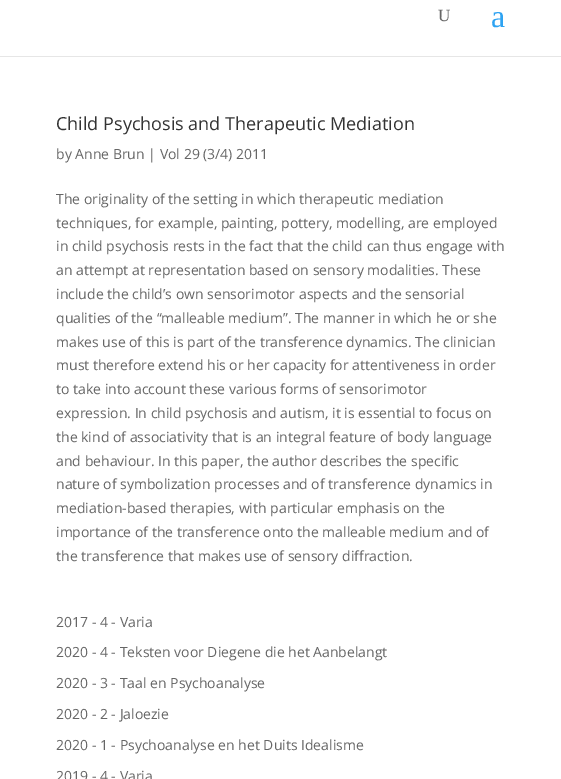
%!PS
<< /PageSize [561 779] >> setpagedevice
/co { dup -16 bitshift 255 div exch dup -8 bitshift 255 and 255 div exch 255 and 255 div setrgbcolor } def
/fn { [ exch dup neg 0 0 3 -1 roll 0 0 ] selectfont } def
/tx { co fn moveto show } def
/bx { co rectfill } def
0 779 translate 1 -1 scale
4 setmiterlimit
0 0 561 779 16#FFFFFF bx
0 56 561 1 16#E6E6E6 bx
(U) 438 21 /LiberationSerif-Regular 17 16#666666 tx
(a) 491 27 /LiberationSerif-Regular 32 16#2EA3F2 tx
(Child Psychosis and Therapeutic Mediation) 56 130 /OpenSans-Regular 18 16#333333 tx
(by Anne Brun | Vol 29 \(3/4\) 2011) 56 159 /OpenSans-Regular 14 16#666666 tx
(The originality of the setting in which therapeutic mediation) 56 204 /OpenSans-Regular 14 16#666666 tx
(techniques, for example, painting, pottery, modelling, are employed) 56 228 /OpenSans-Regular 14 16#666666 tx
(in child psychosis rests in the fact that the child can thus engage with) 56 251 /OpenSans-Regular 14 16#666666 tx
(an attempt at representation based on sensory modalities. These) 56 275 /OpenSans-Regular 14 16#666666 tx
(include the child’s own sensorimotor aspects and the sensorial) 56 299 /OpenSans-Regular 14 16#666666 tx
(qualities of the “malleable medium”. The manner in which he or she) 56 323 /OpenSans-Regular 14 16#666666 tx
(makes use of this is part of the transference dynamics. The clinician) 56 347 /OpenSans-Regular 14 16#666666 tx
(must therefore extend his or her capacity for attentiveness in order) 56 370 /OpenSans-Regular 14 16#666666 tx
(to take into account these various forms of sensorimotor) 56 394 /OpenSans-Regular 14 16#666666 tx
(expression. In child psychosis and autism, it is essential to focus on) 56 418 /OpenSans-Regular 14 16#666666 tx
(the kind of associativity that is an integral feature of body language) 56 442 /OpenSans-Regular 14 16#666666 tx
(and behaviour. In this paper, the author describes the specific) 56 466 /OpenSans-Regular 14 16#666666 tx
(nature of symbolization processes and of transference dynamics in) 56 489 /OpenSans-Regular 14 16#666666 tx
(mediation-based therapies, with particular emphasis on the) 56 513 /OpenSans-Regular 14 16#666666 tx
(importance of the transference onto the malleable medium and of) 56 537 /OpenSans-Regular 14 16#666666 tx
(the transference that makes use of sensory diffraction.) 56 561 /OpenSans-Regular 14 16#666666 tx
(2017 - 4 - Varia) 56 627 /OpenSans-Regular 14 16#666666 tx
(2020 - 4 - Teksten voor Diegene die het Aanbelangt) 56 657 /OpenSans-Regular 14 16#666666 tx
(2020 - 3 - Taal en Psychoanalyse) 56 688 /OpenSans-Regular 14 16#666666 tx
(2020 - 2 - Jaloezie) 56 719 /OpenSans-Regular 14 16#666666 tx
(2020 - 1 - Psychoanalyse en het Duits Idealisme) 56 750 /OpenSans-Regular 14 16#666666 tx
(2019 - 4 - Varia) 56 781 /OpenSans-Regular 14 16#666666 tx
showpage
